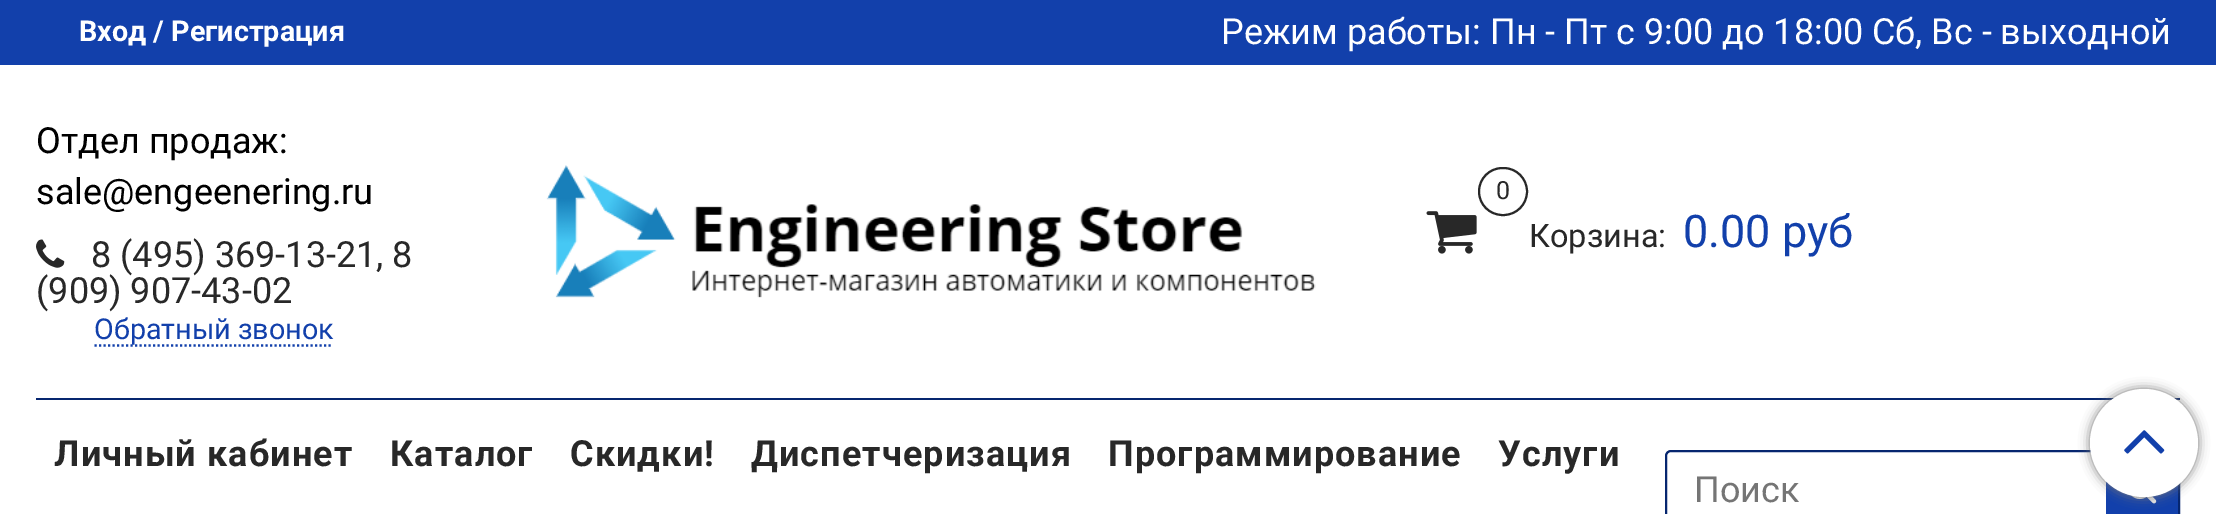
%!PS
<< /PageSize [2216 514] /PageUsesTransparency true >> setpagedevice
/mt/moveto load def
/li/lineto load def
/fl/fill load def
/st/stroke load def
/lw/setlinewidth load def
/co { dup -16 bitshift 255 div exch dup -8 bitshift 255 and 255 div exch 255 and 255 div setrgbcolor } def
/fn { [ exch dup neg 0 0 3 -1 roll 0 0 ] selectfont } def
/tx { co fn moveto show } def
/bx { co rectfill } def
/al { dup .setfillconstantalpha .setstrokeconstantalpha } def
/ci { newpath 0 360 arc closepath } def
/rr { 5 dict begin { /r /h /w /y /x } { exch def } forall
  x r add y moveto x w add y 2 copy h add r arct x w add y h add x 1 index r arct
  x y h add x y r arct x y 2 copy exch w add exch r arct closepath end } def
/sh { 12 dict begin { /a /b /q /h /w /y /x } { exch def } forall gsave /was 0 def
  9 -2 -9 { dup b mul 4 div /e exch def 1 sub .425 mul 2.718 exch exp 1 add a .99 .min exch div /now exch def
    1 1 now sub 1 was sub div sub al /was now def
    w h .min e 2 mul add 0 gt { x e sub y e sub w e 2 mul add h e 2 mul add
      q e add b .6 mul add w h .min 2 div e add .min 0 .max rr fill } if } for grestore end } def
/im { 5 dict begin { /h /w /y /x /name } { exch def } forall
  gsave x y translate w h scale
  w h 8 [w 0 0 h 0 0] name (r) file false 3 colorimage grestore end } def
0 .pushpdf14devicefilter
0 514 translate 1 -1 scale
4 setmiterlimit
0 0 2216 514 16#FFFFFF bx
0 0 2216 65 16#1240AB bx
(media/1.raw) 36 239 29 29 im
2.2 lw
[2.25 2.25] 0 setdash
94.5 345.5 mt 333 345.5 li st
(media/2.raw) 546 165 770 133 im
16#282828 co
2 lw
[] 0 setdash
1479 168 48 47 23.5 rr st
(media/3.raw) 1426 211 51 43 im
36 398 2144 2 16#06266F bx
1666 451 513 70 5 rr st
2106 481 72 33 16#1240AB bx
(media/4.raw) 2131 495 26 9 im
16#777777 co
2090 389 108 108 54 5.5 1 sh
16#FFFFFF co
2144 443 54 ci fl
(media/5.raw) 2124 430 41 24 im
(Вход / Регистрация) 79 41 /Roboto-Bold 28.75 16#FFFFFF tx
(Режим работы: Пн - Пт с 9:00 до 18:00 Сб, Вс - выходной) 1221 44 /Roboto-Regular 36 16#FFFFFF tx
(Отдел продаж:) 36 153 /Roboto-Regular 36 16#000000 tx
(sale@engeenering.ru) 36 204 /Roboto-Regular 36 16#000000 tx
(8 \(495\) 369-13-21, 8) 91 267 /Roboto-Regular 36 16#282828 tx
(\(909\) 907-43-02) 36 303 /Roboto-Regular 36 16#282828 tx
(Обратный звонок) 94 339 /Roboto-Regular 28.75 16#1240AB tx
(0) 1496 199 /Roboto-Regular 25 16#282828 tx
(Корзина:) 1529 247 /Roboto-Regular 32.5 16#282828 tx
(0.00 руб) 1683 247 /Roboto-Regular 45 16#1240AB tx
/Roboto-Bold 36 fn
16#282828 co
54 466 mt 1.1 0 (Личный кабинет) ashow
390 466 mt 1.1 0 (Каталог) ashow
570 466 mt 1.1 0 (Скидки!) ashow
751 466 mt 1.1 0 (Диспетчеризация) ashow
1108 466 mt 1.1 0 (Программирование) ashow
1498 466 mt 1.1 0 (Услуги) ashow
(Поиск) 1694 502 /Roboto-Regular 36 16#757575 tx
.poppdf14devicefilter showpage
